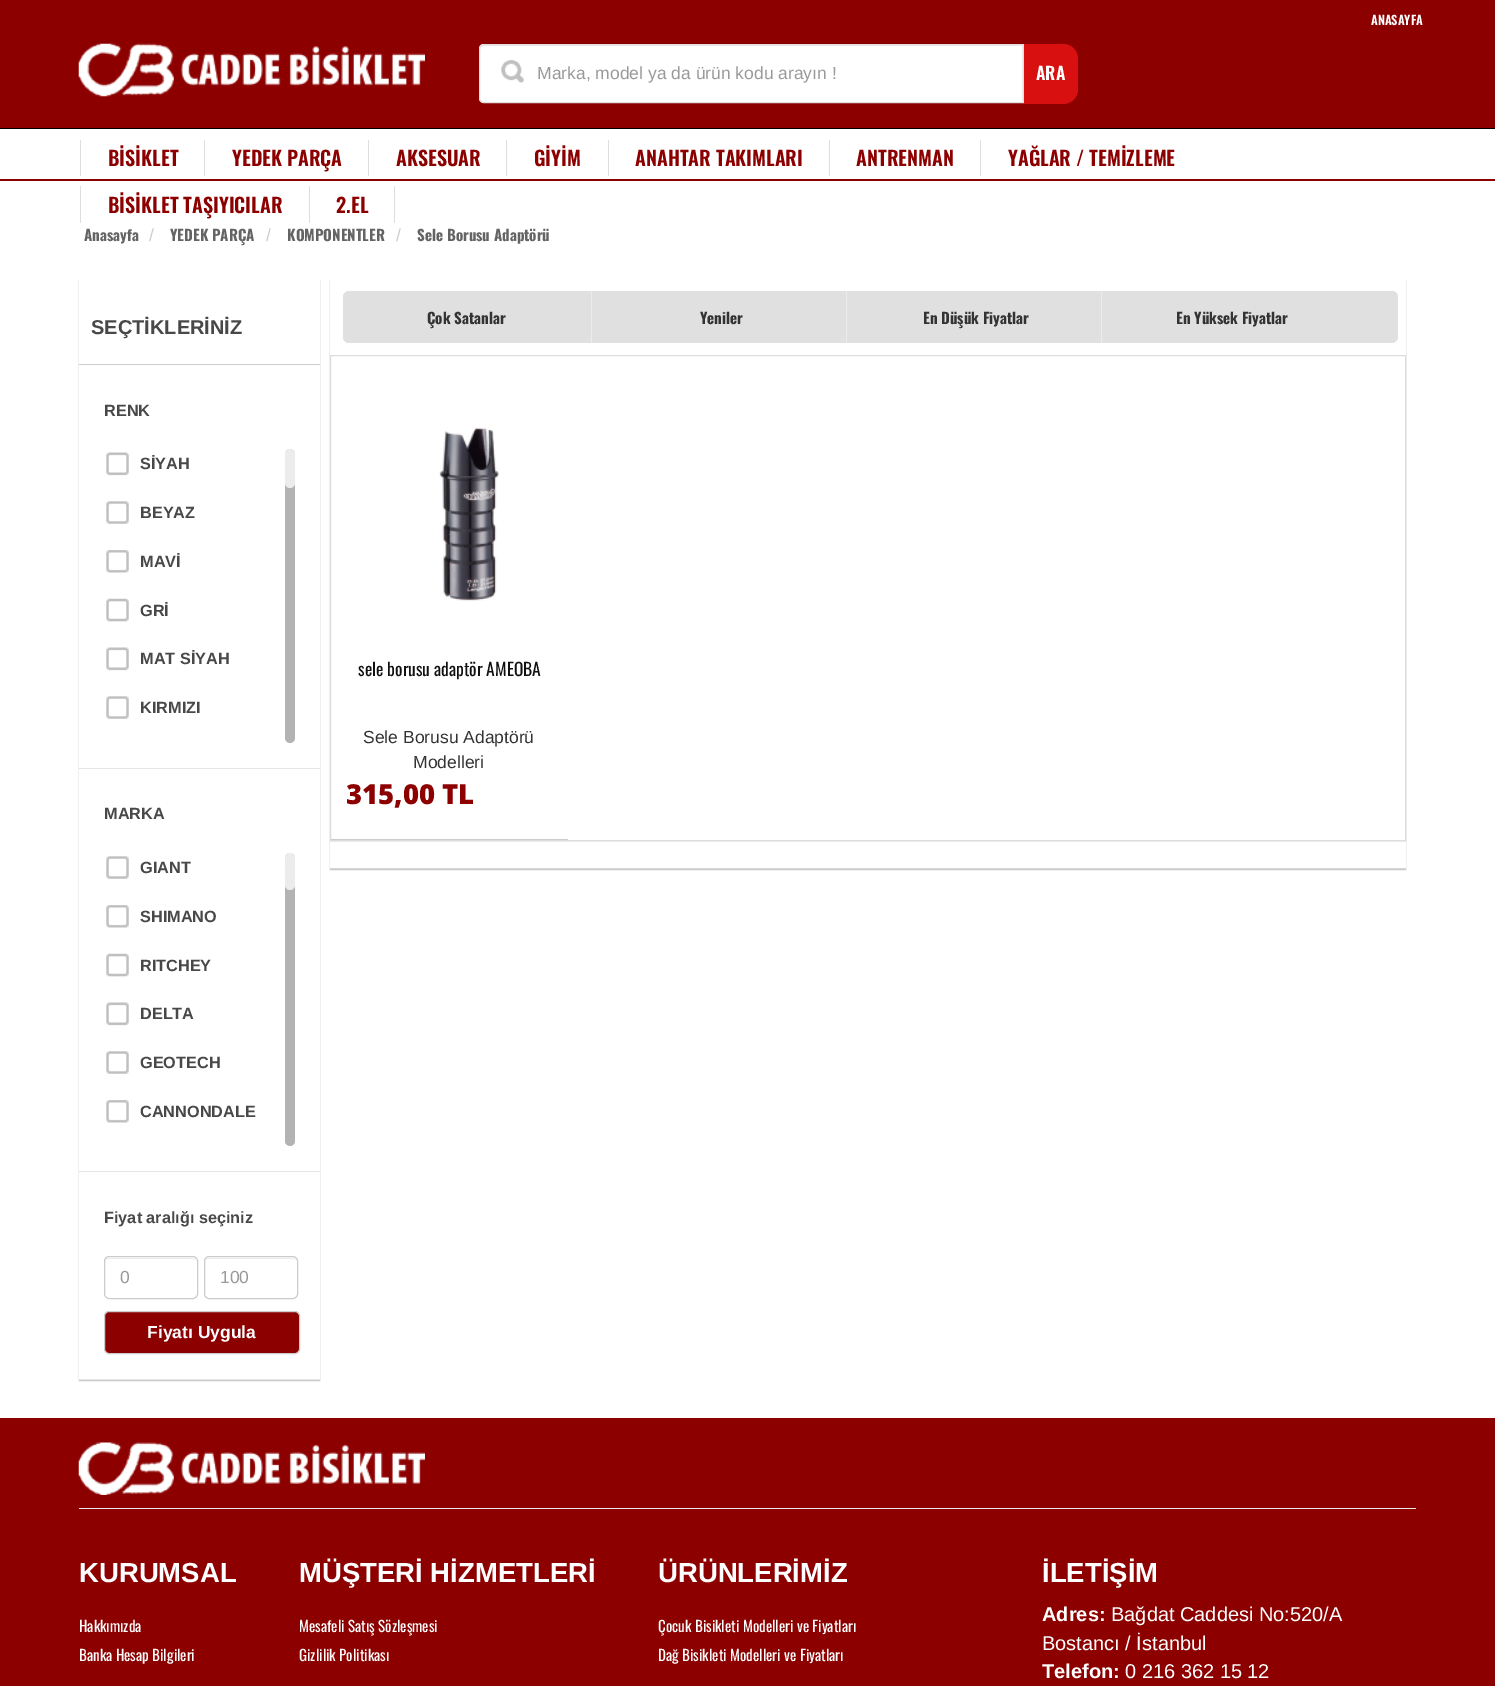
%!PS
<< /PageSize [1495 1686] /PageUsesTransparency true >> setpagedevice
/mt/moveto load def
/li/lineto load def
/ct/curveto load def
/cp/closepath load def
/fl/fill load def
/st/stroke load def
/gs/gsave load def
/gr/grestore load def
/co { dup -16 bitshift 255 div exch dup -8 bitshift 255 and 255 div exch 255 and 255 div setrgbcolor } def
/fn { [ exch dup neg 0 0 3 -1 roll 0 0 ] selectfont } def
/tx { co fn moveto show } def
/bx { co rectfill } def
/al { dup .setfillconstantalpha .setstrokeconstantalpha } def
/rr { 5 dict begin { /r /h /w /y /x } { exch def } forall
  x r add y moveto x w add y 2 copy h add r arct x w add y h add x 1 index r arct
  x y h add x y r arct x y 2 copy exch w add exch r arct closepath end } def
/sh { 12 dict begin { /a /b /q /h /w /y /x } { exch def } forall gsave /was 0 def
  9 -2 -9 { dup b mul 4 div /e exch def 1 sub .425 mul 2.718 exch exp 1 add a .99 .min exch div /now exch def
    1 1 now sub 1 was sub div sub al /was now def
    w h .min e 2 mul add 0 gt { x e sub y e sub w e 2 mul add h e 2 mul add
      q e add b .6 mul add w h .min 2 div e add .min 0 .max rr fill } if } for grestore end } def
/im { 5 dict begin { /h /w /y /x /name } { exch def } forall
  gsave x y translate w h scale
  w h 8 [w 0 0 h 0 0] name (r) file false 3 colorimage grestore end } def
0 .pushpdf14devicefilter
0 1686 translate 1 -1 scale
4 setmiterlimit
0 0 1495 1686 16#FFFFFF bx
0 0 1495 181 16#8C0000 bx
(media/1.raw) 78 43 347 54 im
16#FFFFFF co
484 44 mt 1024 44 li 1024 103 li 484 103 li 481 103 479 101 479 98 ct 479 49 li 479 46 481 44 484 44 ct cp fl
(media/2.raw) 501 60 23 23 im
16#ECECEC co
484 46 mt 1022 46 li 1022 101 li 1023 101 li 1023 45 li 484 45 li 481 45 480 47 480 50 ct 480 48 482 46 484 46 ct cp fl
16#E0E0E0 co
484 44.5 mt 1023.5 44.5 li 1023.5 102.5 li 484 102.5 li 481.5 102.5 479.5 100.5 479.5 98 ct 479.5 49 li 479.5 46.5 481.5 44.5 484 44.5 ct cp st
16#D91010 co
1024 44 mt 1063 44 li 1071.5 44 1078 50.5 1078 59 ct 1078 89 li 1078 97.5 1071.5 104 1063 104 ct 1024 104 li cp fl
0 129 1495 50 16#FFFFFF bx
0 128 1495 1 16#000000 bx
80 140 1 36 16#DEDEDE bx
204 140 1 36 16#DEDEDE bx
368 140 1 36 16#DEDEDE bx
506 140 1 36 16#DEDEDE bx
608 140 1 36 16#DEDEDE bx
829 140 1 36 16#DEDEDE bx
980 140 1 36 16#DEDEDE bx
80 186 1 37 16#DEDEDE bx
394 186 1 37 16#DEDEDE bx
309 186 1 37 16#DEDEDE bx
gs
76 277 mt 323 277 li 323 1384 li 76 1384 li cp 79 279 mt 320 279 li 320 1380 li 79 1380 li cp eoclip newpath
16#C4C4C4 co
79 280 241 1101 0 .5 1 sh
gr
79 364 241 1 16#CCCCCC bx
79 768 241 1 16#E5E5E5 bx
(media/3.raw) 106 452 23 24 im
(media/4.raw) 106 501 23 23 im
(media/5.raw) 106 550 23 23 im
(media/6.raw) 106 598 23 24 im
(media/3.raw) 106 647 23 24 im
(media/4.raw) 106 696 23 23 im
16#B3B3B3 co
285 449 10 294 5 rr fl
0.75 al
16#FFFFFF co
285 449 10 39 5 rr fl
1 al
79 1171 241 1 16#E5E5E5 bx
(media/4.raw) 106 856 23 23 im
(media/5.raw) 106 905 23 23 im
(media/6.raw) 106 953 23 24 im
(media/3.raw) 106 1002 23 24 im
(media/4.raw) 106 1051 23 23 im
(media/5.raw) 106 1100 23 23 im
16#B3B3B3 co
285 853 10 293 5 rr fl
0.75 al
16#FFFFFF co
285 853 10 37 5 rr fl
1 al
79 1379 241 1 16#E5E5E5 bx
16#ECECEC co
109 1259 mt 193 1259 li 196 1260 li 195 1259 194 1258 192 1258 ct 109 1258 li 107 1258 105 1260 105 1262 ct 105 1260 107 1259 109 1259 ct cp fl
16#CCCCCC co
104.5 1256.5 93 42 4.5 rr st
16#ECECEC co
209 1259 mt 293 1259 li 296 1260 li 295 1259 294 1258 292 1258 ct 209 1258 li 207 1258 205 1260 205 1262 ct 205 1260 207 1259 209 1259 ct cp fl
16#CCCCCC co
204.5 1256.5 93 42 4.5 rr st
16#8C0000 co
104.5 1311.5 195 42 4.5 rr gs fl gr
16#CCCCCC co
st
16#C4C4C4 co
330 280 1076 590 0 .5 1 sh
330 279 1076 589 16#FFFFFF bx
16#E0E0E0 co
343 291 1055 52 6 rr fl
591 291 1 52 16#EBEBEB bx
846 291 1 52 16#EBEBEB bx
1101 291 1 52 16#EBEBEB bx
16#DDDDDD co
330.5 355.5 1075 485 rectstroke
331 839 237 1 16#CCCCCC bx
(media/7.raw) 439 427 60 174 im
330 841 1076 1 16#EAEAEA bx
330 868 1076 1 16#D5D5D5 bx
0 1418 1495 268 16#8C0000 bx
79 1508 1337 1 16#E9E9E9 bx
(media/8.raw) 78 1442 347 53 im
(ANASAYFA) 1371 25 /Oswald-SemiBold 12.5 16#FFFFFF tx
(Marka, model ya da ürün kodu arayın !) 537 79 /LiberationSans-Regular 17.5 16#999999 tx
(ARA) 1036 80 /Oswald-SemiBold 17.5 16#FFFFFF tx
(BİSİKLET) 108 166 /Oswald-SemiBold 20 16#8C0000 tx
(YEDEK PARÇA) 232 166 /Oswald-SemiBold 20 16#8C0000 tx
(AKSESUAR) 396 166 /Oswald-SemiBold 20 16#8C0000 tx
(GİYİM) 534 166 /Oswald-SemiBold 20 16#8C0000 tx
(ANAHTAR TAKIMLARI) 635 166 /Oswald-SemiBold 20 16#8C0000 tx
(ANTRENMAN) 856 166 /Oswald-SemiBold 20 16#8C0000 tx
(YAĞLAR / TEMİZLEME) 1008 166 /Oswald-SemiBold 20 16#8C0000 tx
(BİSİKLET TAŞIYICILAR) 108 213 /Oswald-SemiBold 20 16#8C0000 tx
(2.EL) 336 213 /Oswald-SemiBold 20 16#8C0000 tx
(Anasayfa) 84 241 /Oswald-Bold 15 16#646464 tx
(/) 149 241 /LiberationSans-Regular 17.5 16#CCCCCC tx
(YEDEK PARÇA) 170 241 /Oswald-Bold 15 16#646464 tx
(/) 266 241 /LiberationSans-Regular 17.5 16#CCCCCC tx
(KOMPONENTLER) 287 241 /Oswald-Bold 15 16#646464 tx
(/) 396 241 /LiberationSans-Regular 17.5 16#CCCCCC tx
(Sele Borusu Adaptörü) 417 241 /Oswald-Bold 15 16#646464 tx
(SEÇTİKLERİNİZ) 91 334 /LiberationSans-Bold 20 16#484848 tx
(RENK) 104 416 /LiberationSans-Bold 16.25 16#484848 tx
(SİYAH) 140 469 /LiberationSans-Bold 16.25 16#484848 tx
(BEYAZ) 140 518 /LiberationSans-Bold 16.25 16#484848 tx
(MAVİ) 140 567 /LiberationSans-Bold 16.25 16#484848 tx
(GRİ) 140 616 /LiberationSans-Bold 16.25 16#484848 tx
(MAT SİYAH) 140 664 /LiberationSans-Bold 16.25 16#484848 tx
(KIRMIZI) 140 713 /LiberationSans-Bold 16.25 16#484848 tx
(MARKA) 104 819 /LiberationSans-Bold 16.25 16#484848 tx
(GIANT) 140 873 /LiberationSans-Bold 16.25 16#484848 tx
(SHIMANO) 140 922 /LiberationSans-Bold 16.25 16#484848 tx
(RITCHEY) 140 971 /LiberationSans-Bold 16.25 16#484848 tx
(DELTA) 140 1019 /LiberationSans-Bold 16.25 16#484848 tx
(GEOTECH) 140 1068 /LiberationSans-Bold 16.25 16#484848 tx
(CANNONDALE) 140 1117 /LiberationSans-Bold 16.25 16#484848 tx
(Fiyat aralığı seçiniz) 104 1223 /LiberationSans-Bold 16.25 16#484848 tx
(0) 120 1283 /LiberationSans-Regular 17.5 16#999999 tx
(100) 220 1283 /LiberationSans-Regular 17.5 16#999999 tx
(Fiyatı Uygula) 147 1338 /LiberationSans-Bold 17.5 16#FFFFFF tx
(Çok Satanlar) 427 324 /Oswald-Bold 15 16#333333 tx
(Yeniler) 700 324 /Oswald-Bold 15 16#333333 tx
(En Düşük Fiyatlar) 923 324 /Oswald-Bold 15 16#333333 tx
(En Yüksek Fiyatlar) 1176 324 /Oswald-Bold 15 16#333333 tx
(sele borusu adaptör AMEOBA) 358 676 /Oswald-Regular 17.5 16#111111 tx
(Sele Borusu Adaptörü) 363 743 /LiberationSans-Regular 17.5 16#333333 tx
(Modelleri) 413 768 /LiberationSans-Regular 17.5 16#333333 tx
(315,00 TL) 346 804 /OpenSans-ExtraBold 27.5 16#8C0000 tx
(KURUMSAL) 79 1582 /LiberationSans-Bold 27.5 16#FFFFFF tx
(Hakkımızda) 79 1632 /Oswald-Regular 15 16#FFFFFF tx
(Banka Hesap Bilgileri) 79 1661 /Oswald-Regular 15 16#FFFFFF tx
(MÜŞTERİ HİZMETLERİ) 299 1582 /LiberationSans-Bold 27.5 16#FFFFFF tx
(Mesafeli Satış Sözleşmesi) 299 1632 /Oswald-Regular 15 16#FFFFFF tx
(Gizlilik Politikası) 299 1661 /Oswald-Regular 15 16#FFFFFF tx
(ÜRÜNLERİMİZ) 658 1582 /LiberationSans-Bold 27.5 16#FFFFFF tx
(Çocuk Bisikleti Modelleri ve Fiyatları) 658 1632 /Oswald-Regular 15 16#FFFFFF tx
(Dağ Bisikleti Modelleri ve Fiyatları) 658 1661 /Oswald-Regular 15 16#FFFFFF tx
(İLETİŞİM) 1042 1582 /LiberationSans-Bold 27.5 16#FFFFFF tx
(Adres:) 1042 1621 /LiberationSans-Bold 20 16#FFFFFF tx
(Bağdat Caddesi No:520/A) 1111 1621 /LiberationSans-Regular 20 16#FFFFFF tx
(Bostancı / İstanbul) 1042 1650 /LiberationSans-Regular 20 16#FFFFFF tx
(Telefon:) 1042 1678 /LiberationSans-Bold 20 16#FFFFFF tx
(0 216 362 15 12) 1125 1678 /LiberationSans-Regular 20 16#FFFFFF tx
.poppdf14devicefilter showpage
